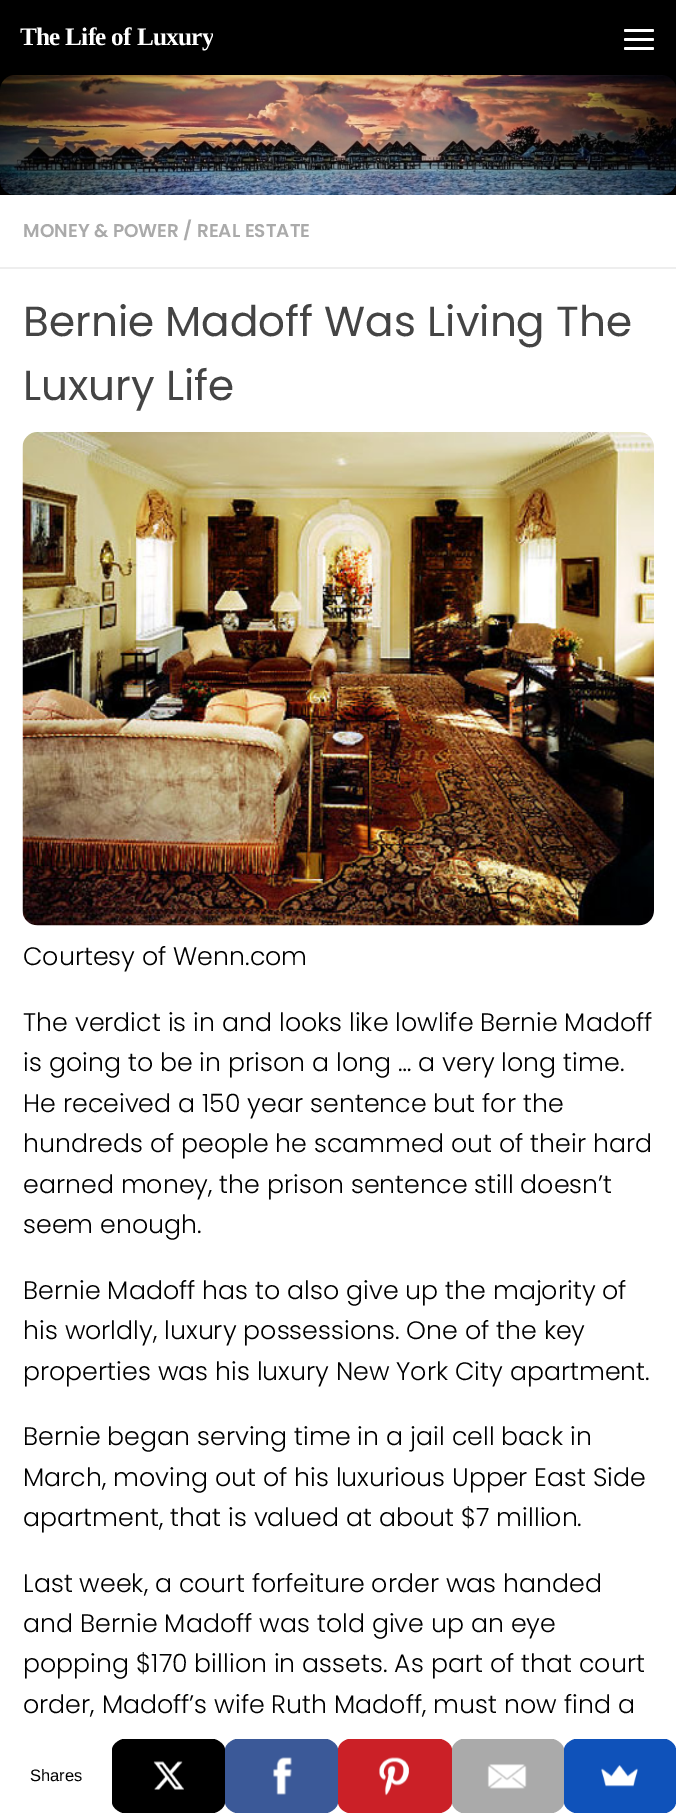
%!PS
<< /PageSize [676 1813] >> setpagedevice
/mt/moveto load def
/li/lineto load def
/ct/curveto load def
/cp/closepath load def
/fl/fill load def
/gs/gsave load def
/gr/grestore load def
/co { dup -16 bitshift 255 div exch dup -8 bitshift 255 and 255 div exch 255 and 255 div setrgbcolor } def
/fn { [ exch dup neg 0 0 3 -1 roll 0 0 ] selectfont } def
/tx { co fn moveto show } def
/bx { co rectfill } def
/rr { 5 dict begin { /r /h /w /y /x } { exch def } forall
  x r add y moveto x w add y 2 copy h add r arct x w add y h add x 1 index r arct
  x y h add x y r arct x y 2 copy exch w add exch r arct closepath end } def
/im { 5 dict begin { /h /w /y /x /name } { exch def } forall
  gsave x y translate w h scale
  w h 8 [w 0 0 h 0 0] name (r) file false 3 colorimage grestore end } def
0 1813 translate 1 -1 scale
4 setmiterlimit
0 0 676 1813 16#000000 bx
16#FFFFFF co
624 29 30 3 1.5 rr fl
624 38 30 3 1.5 rr fl
624 47 30 3 1.5 rr fl
(media/1.raw) 0 75 676 120 im
0 195 676 1618 16#FFFFFF bx
0 267 676 2 16#EEEEEE bx
(media/2.raw) 22 432 632 494 im
gs
0 1739 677 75 rectclip
16#000000 co
129 1738 mt 208 1738 li 217 1738 225 1744 225 1750 ct 225 1802 li 225 1808 217 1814 208 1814 ct 129 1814 li 120 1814 112 1808 112 1802 ct 112 1750 li 112 1744 120 1738 129 1738 ct cp fl
gr
(media/3.raw) 153 1761 31 29 im
gs
0 1739 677 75 rectclip
16#3B5998 co
242 1738 mt 321 1738 li 330 1738 338 1744 338 1750 ct 338 1802 li 338 1808 330 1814 321 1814 ct 242 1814 li 233 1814 225 1808 225 1802 ct 225 1750 li 225 1744 233 1738 242 1738 ct cp fl
gr
(media/4.raw) 273 1757 19 38 im
gs
0 1739 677 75 rectclip
16#CB2027 co
355 1738 mt 434 1738 li 444 1738 452 1744 452 1750 ct 452 1802 li 452 1808 444 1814 434 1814 ct 355 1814 li 345 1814 338 1808 338 1802 ct 338 1750 li 338 1744 345 1738 355 1738 ct cp fl
gr
(media/5.raw) 379 1757 30 39 im
gs
0 1739 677 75 rectclip
16#AAAAAA co
468 1738 mt 547 1738 li 556 1738 564 1744 564 1750 ct 564 1802 li 564 1808 556 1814 547 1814 ct 468 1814 li 459 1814 452 1808 452 1802 ct 452 1750 li 452 1744 459 1738 468 1738 ct cp fl
gr
(media/6.raw) 487 1764 40 25 im
gs
0 1739 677 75 rectclip
16#0F52BA co
581 1738 mt 660 1738 li 669 1738 676 1744 676 1750 ct 676 1802 li 676 1808 669 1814 660 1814 ct 581 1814 li 572 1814 564 1808 564 1802 ct 564 1750 li 564 1744 572 1738 581 1738 ct cp fl
gr
(media/7.raw) 601 1765 37 22 im
gs
20 0 193 75 rectclip
/LiberationSerif-Bold 25.25 fn
16#FFFFFF co
20 45 mt -.75 0 (The Life of Luxury) ashow
gr
(MONEY & POWER / REAL ESTATE) 23 237 /Poppins-SemiBold 18.5 16#AAAAAA tx
(Bernie Madoff Was Living The) 23 336 /Poppins-Regular 42.1 16#444444 tx
(Luxury Life) 23 400 /Poppins-Regular 42.1 16#444444 tx
(Courtesy of Wenn.com) 23 965 /Poppins-Light 25.25 16#000000 tx
(The verdict is in and looks like lowlife Bernie Madoff) 23 1031 /Poppins-Light 25.25 16#000000 tx
(is going to be in prison a long … a very long time.) 23 1071 /Poppins-Light 25.25 16#000000 tx
(He received a 150 year sentence but for the) 23 1112 /Poppins-Light 25.25 16#000000 tx
(hundreds of people he scammed out of their hard) 23 1152 /Poppins-Light 25.25 16#000000 tx
(earned money, the prison sentence still doesn’t) 23 1193 /Poppins-Light 25.25 16#000000 tx
(seem enough.) 23 1233 /Poppins-Light 25.25 16#000000 tx
(Bernie Madoff has to also give up the majority of) 23 1299 /Poppins-Light 25.25 16#000000 tx
(his worldly, luxury possessions. One of the key) 23 1339 /Poppins-Light 25.25 16#000000 tx
(properties was his luxury New York City apartment.) 23 1380 /Poppins-Light 25.25 16#000000 tx
(Bernie began serving time in a jail cell back in) 23 1445 /Poppins-Light 25.25 16#000000 tx
(March, moving out of his luxurious Upper East Side) 23 1486 /Poppins-Light 25.25 16#000000 tx
(apartment, that is valued at about $7 million.) 23 1526 /Poppins-Light 25.25 16#000000 tx
(Last week, a court forfeiture order was handed) 23 1592 /Poppins-Light 25.25 16#000000 tx
(and Bernie Madoff was told give up an eye) 23 1632 /Poppins-Light 25.25 16#000000 tx
(popping $170 billion in assets. As part of that court) 23 1672 /Poppins-Light 25.25 16#000000 tx
(order, Madoff’s wife Ruth Madoff, must now find a) 23 1713 /Poppins-Light 25.25 16#000000 tx
(Shares) 30 1781 /LiberationSans-Regular 16.5 16#000000 tx
showpage
